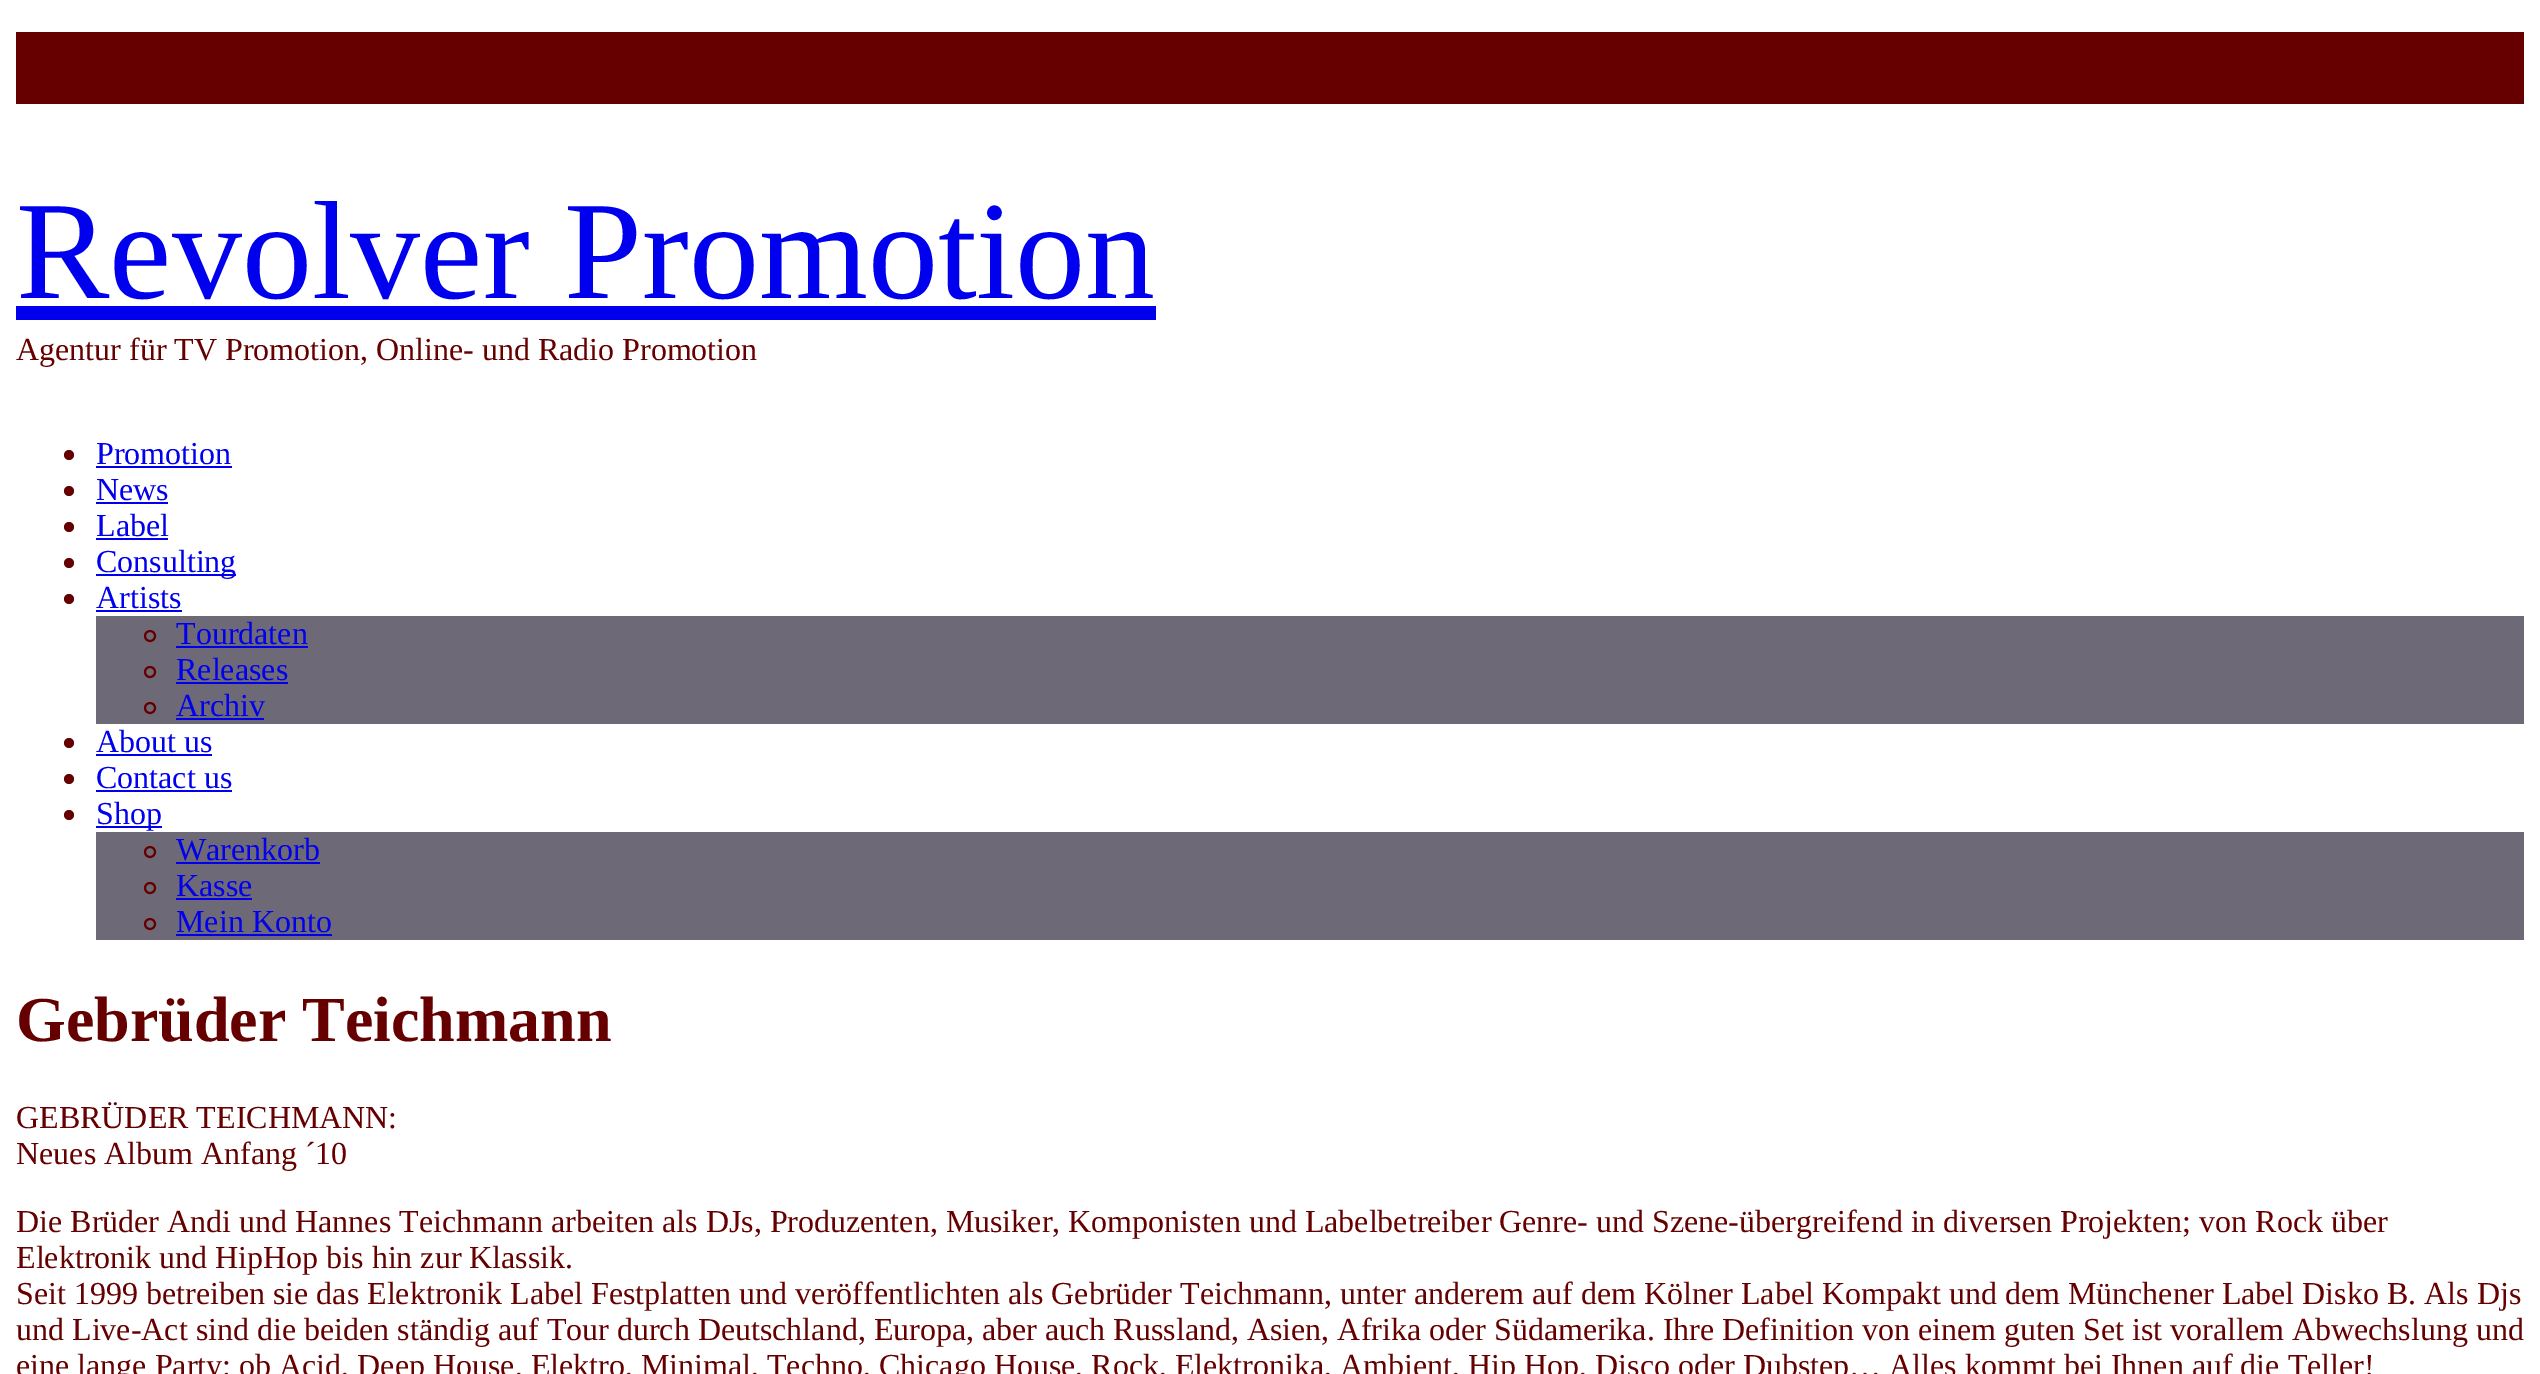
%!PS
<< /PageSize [2540 1374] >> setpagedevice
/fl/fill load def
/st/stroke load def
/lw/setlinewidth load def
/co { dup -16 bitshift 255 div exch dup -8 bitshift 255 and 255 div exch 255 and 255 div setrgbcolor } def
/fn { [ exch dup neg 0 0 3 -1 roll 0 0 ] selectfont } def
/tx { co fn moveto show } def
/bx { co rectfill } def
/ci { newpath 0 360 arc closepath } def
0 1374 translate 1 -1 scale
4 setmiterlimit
0 0 2540 1374 16#FFFFFF bx
16 32 2508 72 16#660000 bx
16 306 1140 14 16#0000EE bx
16#660000 co
69 455 5 ci fl
96 466 136 2 16#0000EE bx
16#660000 co
69 491 5 ci fl
96 502 72 2 16#0000EE bx
16#660000 co
69 527 5 ci fl
96 538 72 2 16#0000EE bx
16#660000 co
69 563 5 ci fl
96 574 140 2 16#0000EE bx
16#660000 co
69 599 5 ci fl
96 610 86 2 16#0000EE bx
96 616 2428 108 16#6E6977 bx
16#660000 co
2 lw
150 636 5 ci st
176 646 132 2 16#0000EE bx
16#660000 co
150 672 5 ci st
176 682 112 2 16#0000EE bx
16#660000 co
150 708 5 ci st
176 718 88 2 16#0000EE bx
16#660000 co
69 743 5 ci fl
96 754 116 2 16#0000EE bx
16#660000 co
69 779 5 ci fl
96 790 136 2 16#0000EE bx
16#660000 co
69 815 5 ci fl
96 826 66 2 16#0000EE bx
96 832 2428 108 16#6E6977 bx
16#660000 co
150 852 5 ci st
176 862 144 2 16#0000EE bx
16#660000 co
150 888 5 ci st
176 898 76 2 16#0000EE bx
16#660000 co
150 924 5 ci st
176 934 156 2 16#0000EE bx
(Revolver Promotion) 16 298 /LiberationSerif-Regular 140 16#0000EE tx
(Agentur für TV Promotion, Online- und Radio Promotion) 16 360 /LiberationSerif-Regular 32 16#660000 tx
(Promotion) 96 464 /LiberationSerif-Regular 32 16#0000EE tx
(News) 96 500 /LiberationSerif-Regular 32 16#0000EE tx
(Label) 96 536 /LiberationSerif-Regular 32 16#0000EE tx
(Consulting) 96 572 /LiberationSerif-Regular 32 16#0000EE tx
(Artists) 96 608 /LiberationSerif-Regular 32 16#0000EE tx
(Tourdaten) 176 644 /LiberationSerif-Regular 32 16#0000EE tx
(Releases) 176 680 /LiberationSerif-Regular 32 16#0000EE tx
(Archiv) 176 716 /LiberationSerif-Regular 32 16#0000EE tx
(About us) 96 752 /LiberationSerif-Regular 32 16#0000EE tx
(Contact us) 96 788 /LiberationSerif-Regular 32 16#0000EE tx
(Shop) 96 824 /LiberationSerif-Regular 32 16#0000EE tx
(Warenkorb) 176 860 /LiberationSerif-Regular 32 16#0000EE tx
(Kasse) 176 896 /LiberationSerif-Regular 32 16#0000EE tx
(Mein Konto) 176 932 /LiberationSerif-Regular 32 16#0000EE tx
(Gebrüder Teichmann) 16 1041 /LiberationSerif-Bold 64 16#660000 tx
(GEBRÜDER TEICHMANN:) 16 1128 /LiberationSerif-Regular 32 16#660000 tx
(Neues Album Anfang ´10) 16 1164 /LiberationSerif-Regular 32 16#660000 tx
(Die Brüder Andi und Hannes Teichmann arbeiten als DJs, Produzenten, Musiker, Komponisten und Labelbetreiber Genre- und Szene-übergreifend in diversen Projekten; von Rock über) 16 1232 /LiberationSerif-Regular 32 16#660000 tx
(Elektronik und HipHop bis hin zur Klassik.) 16 1268 /LiberationSerif-Regular 32 16#660000 tx
(Seit 1999 betreiben sie das Elektronik Label Festplatten und veröffentlichten als Gebrüder Teichmann, unter anderem auf dem Kölner Label Kompakt und dem Münchener Label Disko B. Als Djs) 16 1304 /LiberationSerif-Regular 32 16#660000 tx
(und Live-Act sind die beiden ständig auf Tour durch Deutschland, Europa, aber auch Russland, Asien, Afrika oder Südamerika. Ihre Definition von einem guten Set ist vorallem Abwechslung und) 16 1340 /LiberationSerif-Regular 32 16#660000 tx
(eine lange Party: ob Acid, Deep House, Elektro, Minimal, Techno, Chicago House, Rock, Elektronika, Ambient, Hip Hop, Disco oder Dubstep… Alles kommt bei Ihnen auf die Teller!) 16 1376 /LiberationSerif-Regular 32 16#660000 tx
showpage
